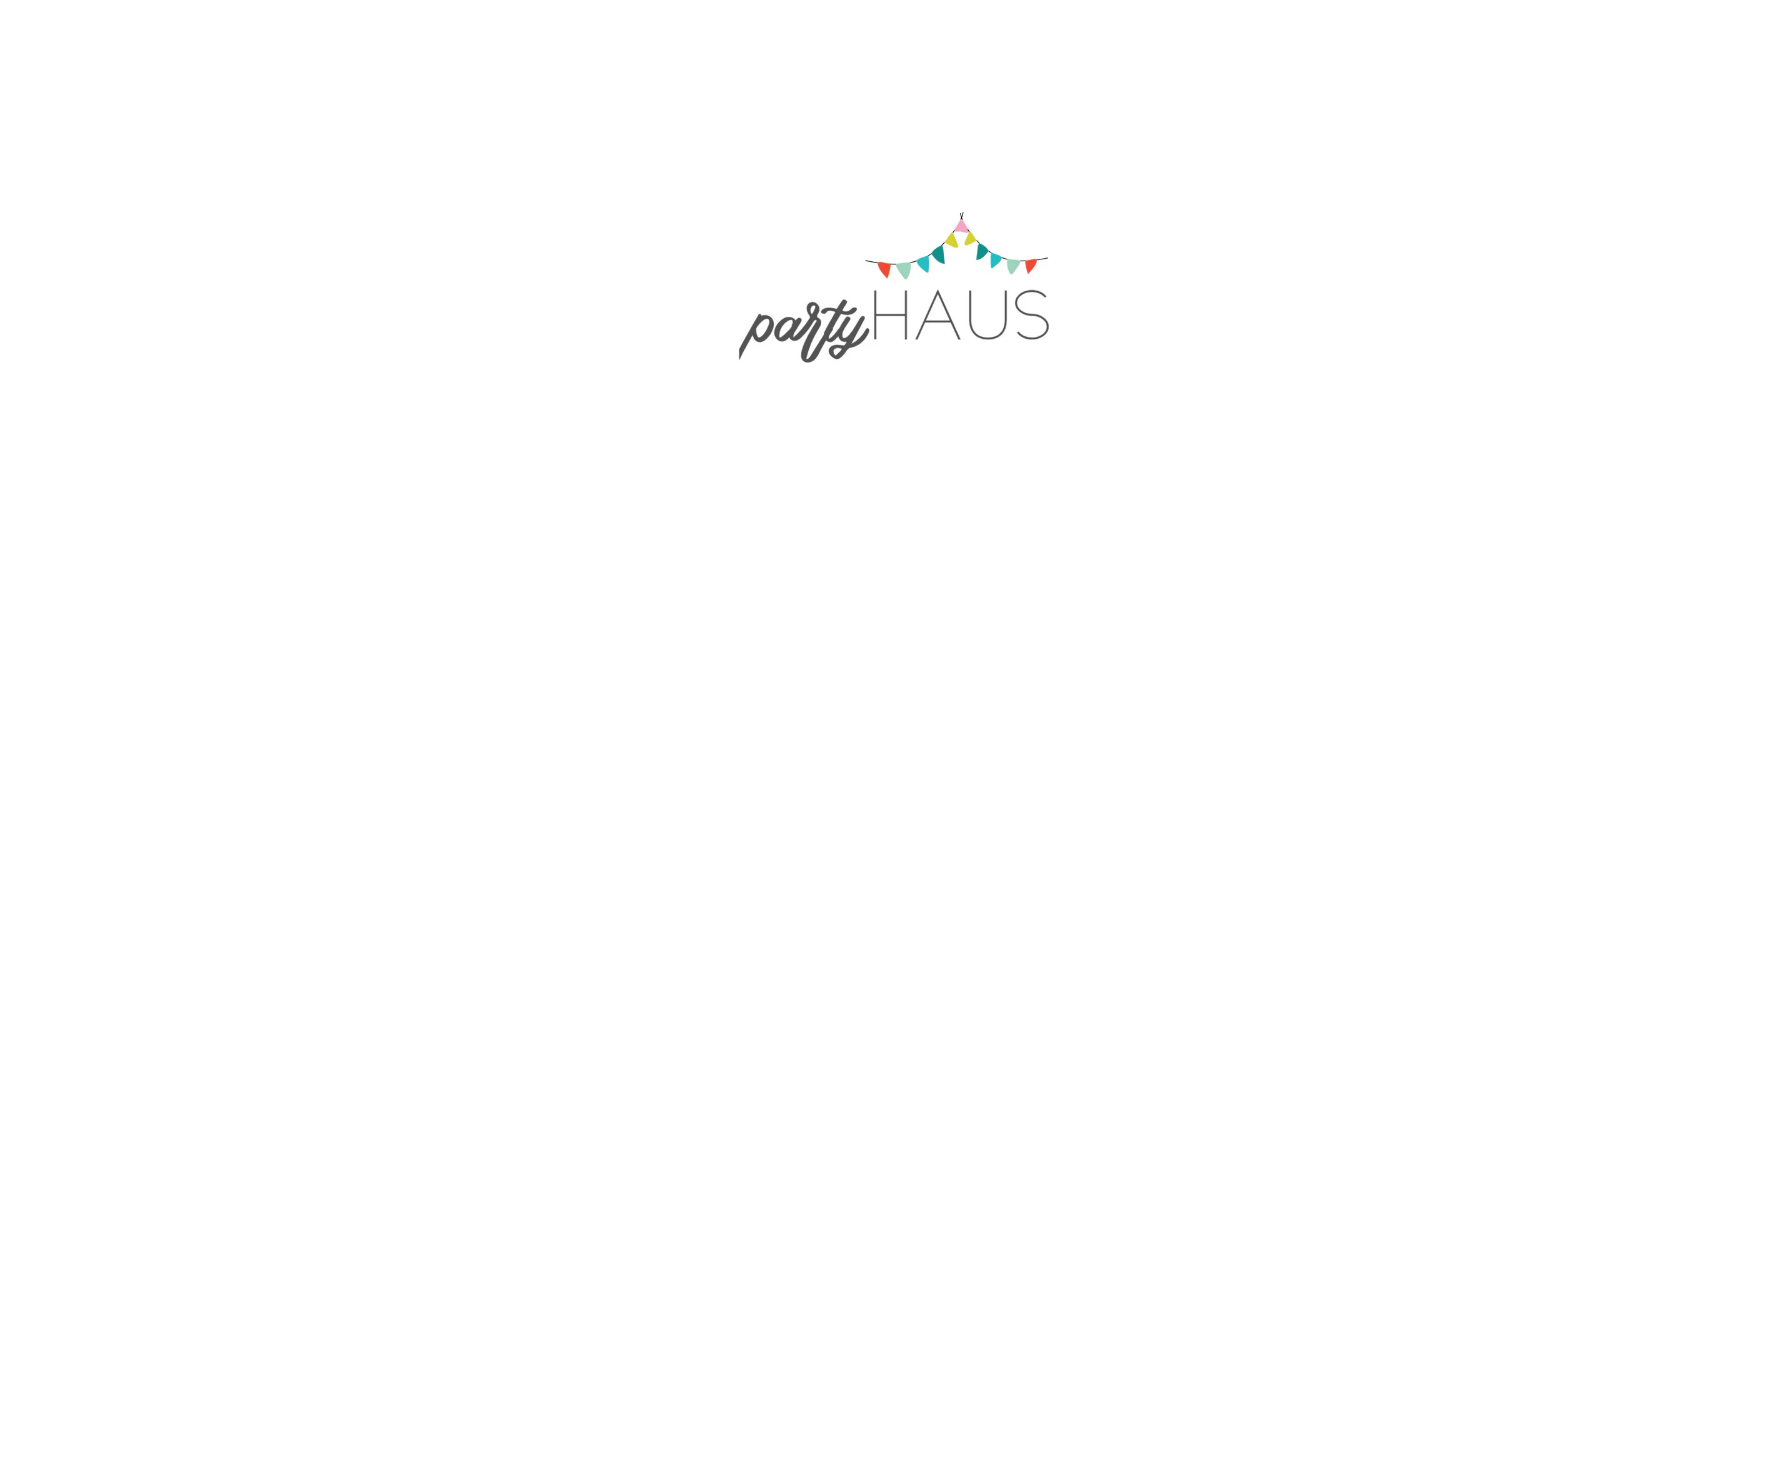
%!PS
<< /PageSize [1786 1475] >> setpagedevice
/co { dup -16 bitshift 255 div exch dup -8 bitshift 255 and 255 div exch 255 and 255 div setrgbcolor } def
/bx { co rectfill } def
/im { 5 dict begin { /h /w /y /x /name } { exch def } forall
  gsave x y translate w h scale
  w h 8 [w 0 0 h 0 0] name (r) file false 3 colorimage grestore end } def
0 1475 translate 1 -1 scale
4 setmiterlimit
0 0 1786 1475 16#FFFFFF bx
(media/1.raw) 738 212 312 151 im
showpage
